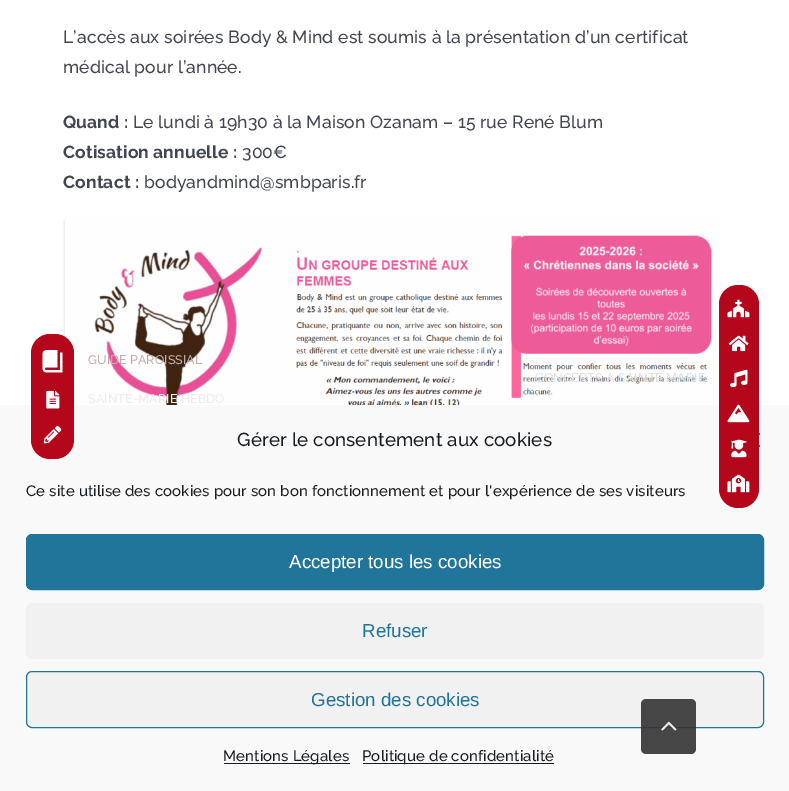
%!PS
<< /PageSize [789 791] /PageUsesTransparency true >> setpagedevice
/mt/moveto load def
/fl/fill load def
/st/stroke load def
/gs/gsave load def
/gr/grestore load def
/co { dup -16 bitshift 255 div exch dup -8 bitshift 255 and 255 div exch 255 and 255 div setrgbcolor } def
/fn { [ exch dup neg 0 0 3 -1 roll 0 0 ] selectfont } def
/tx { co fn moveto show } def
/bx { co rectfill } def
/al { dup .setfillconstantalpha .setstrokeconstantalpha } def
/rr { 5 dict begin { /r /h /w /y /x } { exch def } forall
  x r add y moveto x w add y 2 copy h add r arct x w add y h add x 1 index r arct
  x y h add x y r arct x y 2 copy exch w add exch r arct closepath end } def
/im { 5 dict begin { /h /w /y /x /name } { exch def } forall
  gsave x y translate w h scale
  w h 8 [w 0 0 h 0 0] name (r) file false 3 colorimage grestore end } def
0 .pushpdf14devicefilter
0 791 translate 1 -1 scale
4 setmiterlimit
0 0 789 791 16#FFFFFF bx
(media/1.raw) 63 220 658 185 im
0 405 789 386 16#F9F9F9 bx
16#B4071B co
31 334 43 125 19 rr fl
(media/2.raw) 42 350 21 23 im
(media/3.raw) 46 390 14 19 im
(media/4.raw) 43 426 19 18 im
719 285 40 223 19 rr fl
(media/5.raw) 727 299 23 19 im
(media/6.raw) 728 335 21 17 im
(media/7.raw) 730 369 18 19 im
(media/8.raw) 727 404 23 19 im
(media/9.raw) 731 439 16 19 im
(media/10.raw) 727 474 23 19 im
(media/11.raw) 759 432 1 16 im
16#21759B co
26.5 534.5 737 55 5.5 rr gs fl gr
st
16#F1F1F1 co
26 603 738 56 6 rr fl
26.5 671.5 737 56 5.5 rr gs fl gr
16#21759B co
st
224 763 126 1 16#191E23 bx
363 763 191 1 16#191E23 bx
0.9 al
16#333333 co
641 699 55 55 5 rr fl
1 al
(media/12.raw) 661 721 16 10 im
/Raleway-Medium 17.5 fn
16#424652 co
63 43 mt .12 0 (L’accès aux soirées Body & Mind est soumis à la présentation d’un certificat) ashow
63 73 mt .12 0 (médical pour l’année.) ashow
/Raleway-Bold 17.5 fn
63 128 mt .12 0 (Quand :) ashow
/Raleway-Medium 17.5 fn
133 128 mt .12 0 (Le lundi à 19h30 à la Maison Ozanam – 15 rue René Blum) ashow
/Raleway-Bold 17.5 fn
63 158 mt .12 0 (Cotisation annuelle :) ashow
/Raleway-Medium 17.5 fn
242 158 mt .12 0 (300€) ashow
/Raleway-Bold 17.5 fn
63 188 mt .12 0 (Contact :) ashow
/Raleway-Medium 17.5 fn
144 188 mt .12 0 (bodyandmind@smbparis.fr) ashow
/Raleway-Medium 12.5 fn
16#C0AEAC co
88 364 mt .12 0 (GUIDE PAROISSIAL) ashow
16#EFE9E9 co
88 403 mt .12 0 (SAINTE-MARIE HEBDO) ashow
16#E2E2E3 co
535 382 mt .12 0 (CONCERTS À SAINTE MARIE) ashow
/Raleway-Medium 18.75 fn
16#191E23 co
237 446 mt .12 0 (Gérer le consentement aux cookies) ashow
/Raleway-Medium 15 fn
26 496 mt .12 0 (Ce site utilise des cookies pour son bon fonctionnement et pour l'expérience de ses visiteurs) ashow
(Accepter tous les cookies) 289 568 /LiberationSans-Regular 18.75 16#FFFFFF tx
(Refuser) 362 637 /LiberationSans-Regular 18.75 16#21759B tx
(Gestion des cookies) 311 706 /LiberationSans-Regular 18.75 16#21759B tx
/Raleway-Medium 15 fn
16#191E23 co
223 761 mt .12 0 (Mentions Légales) ashow
362 761 mt .12 0 (Politique de confidentialité) ashow
.poppdf14devicefilter showpage
